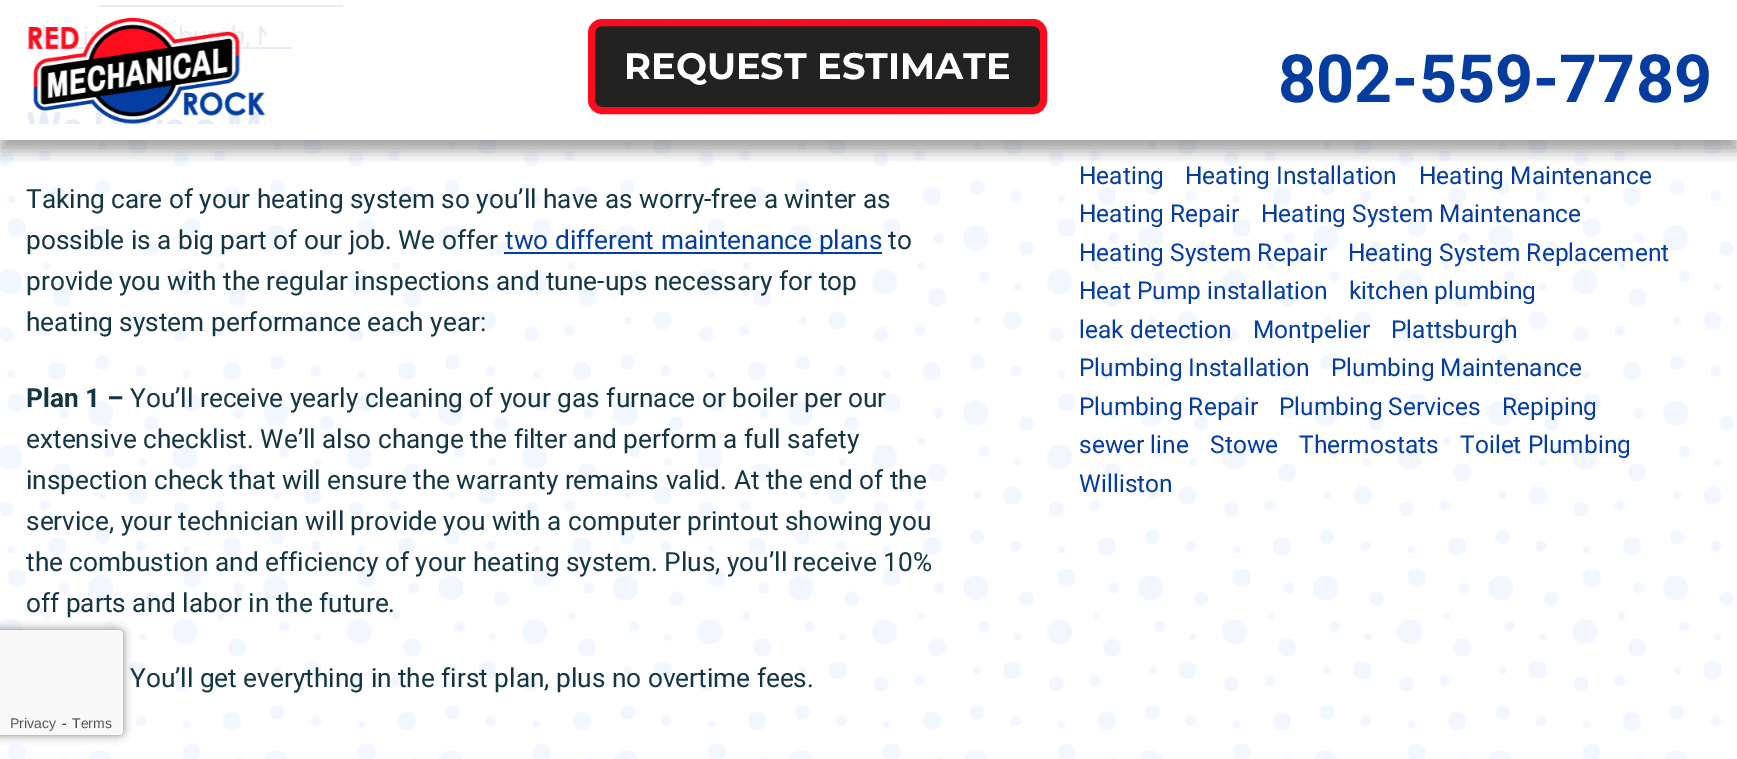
%!PS
<< /PageSize [1737 759] /PageUsesTransparency true >> setpagedevice
/mt/moveto load def
/li/lineto load def
/ct/curveto load def
/cp/closepath load def
/fl/fill load def
/st/stroke load def
/gs/gsave load def
/gr/grestore load def
/lw/setlinewidth load def
/co { dup -16 bitshift 255 div exch dup -8 bitshift 255 and 255 div exch 255 and 255 div setrgbcolor } def
/fn { [ exch dup neg 0 0 3 -1 roll 0 0 ] selectfont } def
/tx { co fn moveto show } def
/bx { co rectfill } def
/al { dup .setfillconstantalpha .setstrokeconstantalpha } def
/rr { 5 dict begin { /r /h /w /y /x } { exch def } forall
  x r add y moveto x w add y 2 copy h add r arct x w add y h add x 1 index r arct
  x y h add x y r arct x y 2 copy exch w add exch r arct closepath end } def
/sh { 12 dict begin { /a /b /q /h /w /y /x } { exch def } forall gsave /was 0 def
  9 -2 -9 { dup b mul 4 div /e exch def 1 sub .425 mul 2.718 exch exp 1 add a .99 .min exch div /now exch def
    1 1 now sub 1 was sub div sub al /was now def
    w h .min e 2 mul add 0 gt { x e sub y e sub w e 2 mul add h e 2 mul add
      q e add b .6 mul add w h .min 2 div e add .min 0 .max rr fill } if } for grestore end } def
/im { 5 dict begin { /h /w /y /x /name } { exch def } forall
  gsave x y translate w h scale
  w h 8 [w 0 0 h 0 0] name (r) file false 3 colorimage grestore end } def
0 .pushpdf14devicefilter
0 759 translate 1 -1 scale
4 setmiterlimit
0 0 1737 759 16#FFFFFF bx
(media/2.raw) 0 5 1734 754 im
98 5 245 2 16#043D9F bx
26 47 266 2 16#043D9F bx
gs
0 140 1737 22 rectclip
16#000000 co
0 11 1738 140 0 7 .35 sh
gr
0.9 al
0 5 1734 135 16#FFFFFF bx
1 al
(media/1.raw) 28 17 238 107 im
16#222222 co
591.5 22.5 452 88 10.5 rr gs fl gr
16#FC0D1D co
7 lw
st
504 252 378 2 16#043D9F bx
16#808080 co
-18 630 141 105 4 4.5 1 sh
gs
-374 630 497 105 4 rr clip newpath
16#000000 co
-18 628 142 109 7 3.5 .08 sh
gr
16#F9F9F9 co
0 630 mt 119 630 li 121 630 123 632 123 634 ct 123 731 li 123 733 121 735 119 735 ct 0 735 li cp fl
(REQUEST ESTIMATE) 624 79 /Montserrat-Thin 36.75 16#FFFFFF tx
(802-559-7789) 1278 102 /Roboto-Bold 66.5 16#043D9F tx
(Taking care of your heating system so you’ll have as worry-free a winter as) 26 208 /Roboto-Regular 26.25 16#143642 tx
(possible is a big part of our job. We offer) 26 249 /Roboto-Regular 26.25 16#143642 tx
(two different maintenance plans) 505 249 /Roboto-Regular 26.25 16#043D9F tx
(to) 888 249 /Roboto-Regular 26.25 16#143642 tx
(provide you with the regular inspections and tune-ups necessary for top) 26 290 /Roboto-Regular 26.25 16#143642 tx
(heating system performance each year:) 26 331 /Roboto-Regular 26.25 16#143642 tx
(Plan 1 –) 26 407 /Roboto-Bold 26.25 16#143642 tx
(You’ll receive yearly cleaning of your gas furnace or boiler per our) 130 407 /Roboto-Regular 26.25 16#143642 tx
(extensive checklist. We’ll also change the filter and perform a full safety) 26 448 /Roboto-Regular 26.25 16#143642 tx
(inspection check that will ensure the warranty remains valid. At the end of the) 26 489 /Roboto-Regular 26.25 16#143642 tx
(service, your technician will provide you with a computer printout showing you) 26 530 /Roboto-Regular 26.25 16#143642 tx
(the combustion and efficiency of your heating system. Plus, you’ll receive 10%) 26 571 /Roboto-Regular 26.25 16#143642 tx
(off parts and labor in the future.) 26 612 /Roboto-Regular 26.25 16#143642 tx
(You’ll get everything in the first plan, plus no overtime fees.) 130 687 /Roboto-Regular 26.25 16#143642 tx
(Heating) 1079 184 /Roboto-Regular 24.5 16#043D9F tx
(Heating Installation) 1185 184 /Roboto-Regular 24.5 16#043D9F tx
(Heating Maintenance) 1419 184 /Roboto-Regular 24.5 16#043D9F tx
(Heating Repair) 1079 222 /Roboto-Regular 24.5 16#043D9F tx
(Heating System Maintenance) 1261 222 /Roboto-Regular 24.5 16#043D9F tx
(Heating System Repair) 1079 261 /Roboto-Regular 24.5 16#043D9F tx
(Heating System Replacement) 1348 261 /Roboto-Regular 24.5 16#043D9F tx
(Heat Pump installation) 1079 299 /Roboto-Regular 24.5 16#043D9F tx
(kitchen plumbing) 1349 299 /Roboto-Regular 24.5 16#043D9F tx
(leak detection) 1079 338 /Roboto-Regular 24.5 16#043D9F tx
(Montpelier) 1253 338 /Roboto-Regular 24.5 16#043D9F tx
(Plattsburgh) 1391 338 /Roboto-Regular 24.5 16#043D9F tx
(Plumbing Installation) 1079 376 /Roboto-Regular 24.5 16#043D9F tx
(Plumbing Maintenance) 1331 376 /Roboto-Regular 24.5 16#043D9F tx
(Plumbing Repair) 1079 415 /Roboto-Regular 24.5 16#043D9F tx
(Plumbing Services) 1279 415 /Roboto-Regular 24.5 16#043D9F tx
(Repiping) 1502 415 /Roboto-Regular 24.5 16#043D9F tx
(sewer line) 1079 453 /Roboto-Regular 24.5 16#043D9F tx
(Stowe) 1210 453 /Roboto-Regular 24.5 16#043D9F tx
(Thermostats) 1299 453 /Roboto-Regular 24.5 16#043D9F tx
(Toilet Plumbing) 1460 453 /Roboto-Regular 24.5 16#043D9F tx
(Williston) 1079 492 /Roboto-Regular 24.5 16#043D9F tx
(Privacy) 10 728 /LiberationSans-Regular 14 16#555555 tx
(-) 62 728 /LiberationSans-Regular 14 16#000000 tx
(Terms) 72 728 /LiberationSans-Regular 14 16#555555 tx
.poppdf14devicefilter showpage
